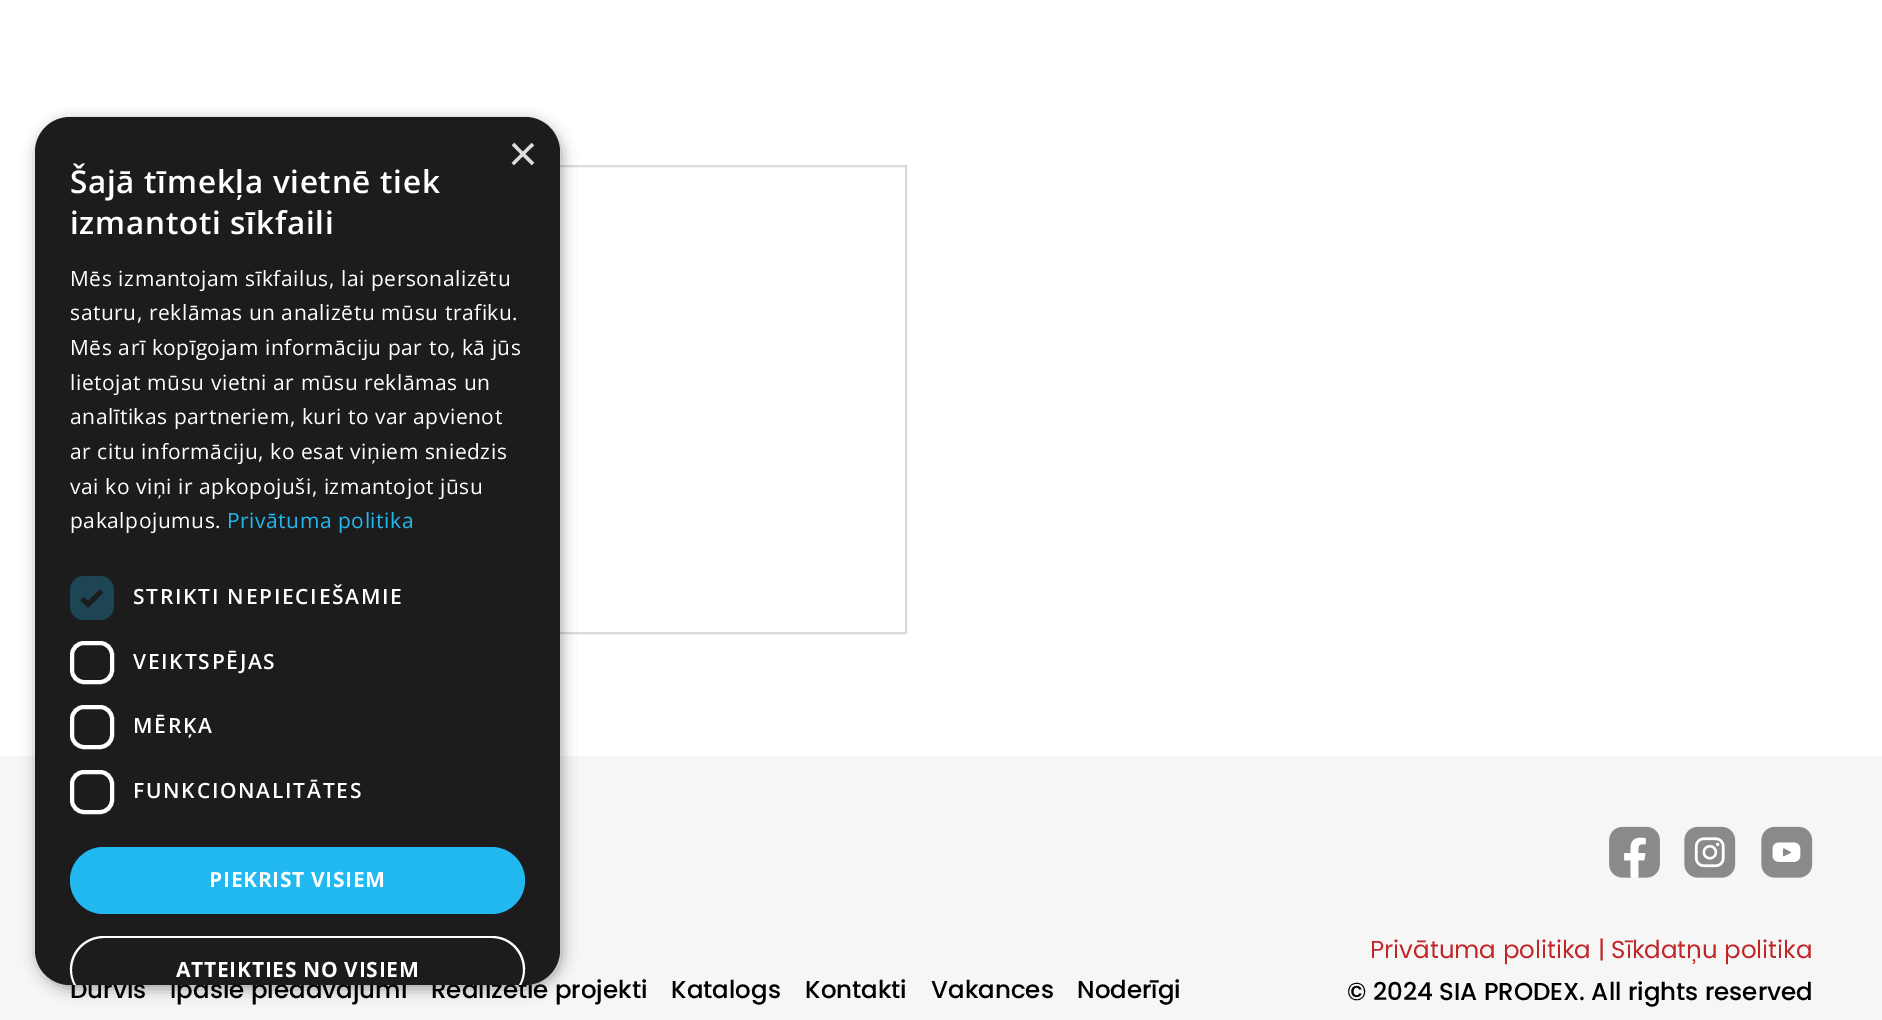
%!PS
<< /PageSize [1882 1020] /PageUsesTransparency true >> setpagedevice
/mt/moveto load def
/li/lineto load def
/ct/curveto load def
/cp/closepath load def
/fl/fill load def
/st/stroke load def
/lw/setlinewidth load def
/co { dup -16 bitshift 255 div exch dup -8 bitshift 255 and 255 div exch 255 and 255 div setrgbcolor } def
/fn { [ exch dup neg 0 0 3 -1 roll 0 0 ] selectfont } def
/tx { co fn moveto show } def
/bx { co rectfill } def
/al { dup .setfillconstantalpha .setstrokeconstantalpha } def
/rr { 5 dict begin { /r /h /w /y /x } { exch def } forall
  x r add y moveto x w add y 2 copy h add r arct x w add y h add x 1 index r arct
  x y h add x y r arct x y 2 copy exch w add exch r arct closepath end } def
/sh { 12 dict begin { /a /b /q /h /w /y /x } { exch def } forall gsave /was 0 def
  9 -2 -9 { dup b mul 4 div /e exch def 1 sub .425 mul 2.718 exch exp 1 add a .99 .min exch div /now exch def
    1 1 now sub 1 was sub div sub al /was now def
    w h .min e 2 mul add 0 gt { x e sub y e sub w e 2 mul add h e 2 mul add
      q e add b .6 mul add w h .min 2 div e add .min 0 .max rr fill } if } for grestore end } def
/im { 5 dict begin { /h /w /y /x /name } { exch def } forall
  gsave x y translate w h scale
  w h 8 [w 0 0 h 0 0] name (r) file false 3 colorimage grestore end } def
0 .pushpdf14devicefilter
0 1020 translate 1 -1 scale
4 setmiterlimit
0 0 1882 1020 16#FFFFFF bx
16#DADADA co
2 lw
127 166 779 467 rectstroke
0 756 1882 264 16#F6F6F6 bx
16#000000 co
37 121 525 868 35 7 .35 sh
(media/1.raw) 1609 826 51 52 im
(media/2.raw) 1684 826 52 52 im
(media/3.raw) 1761 826 52 52 im
(Durvis) 70 998 /Poppins-Medium 24.5 16#000000 tx
(Īpašie piedāvājumi) 170 998 /Poppins-Medium 24.5 16#000000 tx
(Realizētie projekti) 431 998 /Poppins-Medium 24.5 16#000000 tx
16#1C1C1C co
35 117 525 868 35 rr fl
(×) 508 171 /LiberationSans-Regular 51 16#DDDDDD tx
16#FFFFFF co
4 lw
72 772 40 40 12 rr st
72 707 40 40 12 rr st
72 643 40 39 12 rr st
16#1E4553 co
70 576 44 44 14 rr fl
16#1C1C1C co
4.6 lw
82 598.5 mt 88 604.5 li 101.5 591 li st
16#FFFFFF co
104 936 mt 78 936 62 963 74 985 ct 76 985 li 73 980 72 975 72 970 ct 72 952 86 938 104 938 ct 492 938 li 509 938 523 952 523 970 ct 523 975 522 980 519 985 ct 521 985 li 533 963 517 936 492 936 ct cp fl
/OpenSans-Bold 21 fn
176 977 mt .7 0 (ATTEIKTIES NO VISIEM) ashow
16#22B8F0 co
70 847 455 67 33.5 rr fl
16#FFFFFF co
209 887 mt .7 0 (PIEKRIST VISIEM) ashow
/OpenSans-SemiBold 21 fn
133 798 mt 1.75 0 (FUNKCIONALITĀTES) ashow
133 733 mt 1.75 0 (MĒRĶA) ashow
133 669 mt 1.75 0 (VEIKTSPĒJAS) ashow
133 604 mt 1.75 0 (STRIKTI NEPIECIEŠAMIE) ashow
/OpenSans-Regular 21 fn
16#22B8F0 co
227 528 mt .55 0 (Privātuma politika) ashow
16#FFFFFF co
70 528 mt .55 0 (pakalpojumus.) ashow
70 494 mt .55 0 (vai ko viņi ir apkopojuši, izmantojot jūsu) ashow
70 459 mt .55 0 (ar citu informāciju, ko esat viņiem sniedzis) ashow
70 424 mt .55 0 (analītikas partneriem, kuri to var apvienot) ashow
70 390 mt .55 0 (lietojat mūsu vietni ar mūsu reklāmas un) ashow
70 355 mt .55 0 (Mēs arī kopīgojam informāciju par to, kā jūs) ashow
70 320 mt .55 0 (saturu, reklāmas un analizētu mūsu trafiku.) ashow
70 286 mt .55 0 (Mēs izmantojam sīkfailus, lai personalizētu) ashow
/OpenSans-SemiBold 31.5 fn
70 234 mt .7 0 (izmantoti sīkfaili) ashow
70 193 mt .7 0 (Šajā tīmekļa vietnē tiek) ashow
(Katalogs) 671 998 /Poppins-Medium 24.5 16#000000 tx
(Kontakti) 805 998 /Poppins-Medium 24.5 16#000000 tx
(Vakances) 931 998 /Poppins-Medium 24.5 16#000000 tx
(Noderīgi) 1077 998 /Poppins-Medium 24.5 16#000000 tx
(Privātuma politika | Sīkdatņu politika) 1370 958 /Poppins-Regular 24.5 16#C12528 tx
(© 2024 SIA PRODEX. All rights reserved) 1347 1000 /Poppins-Medium 24.5 16#000000 tx
.poppdf14devicefilter showpage
